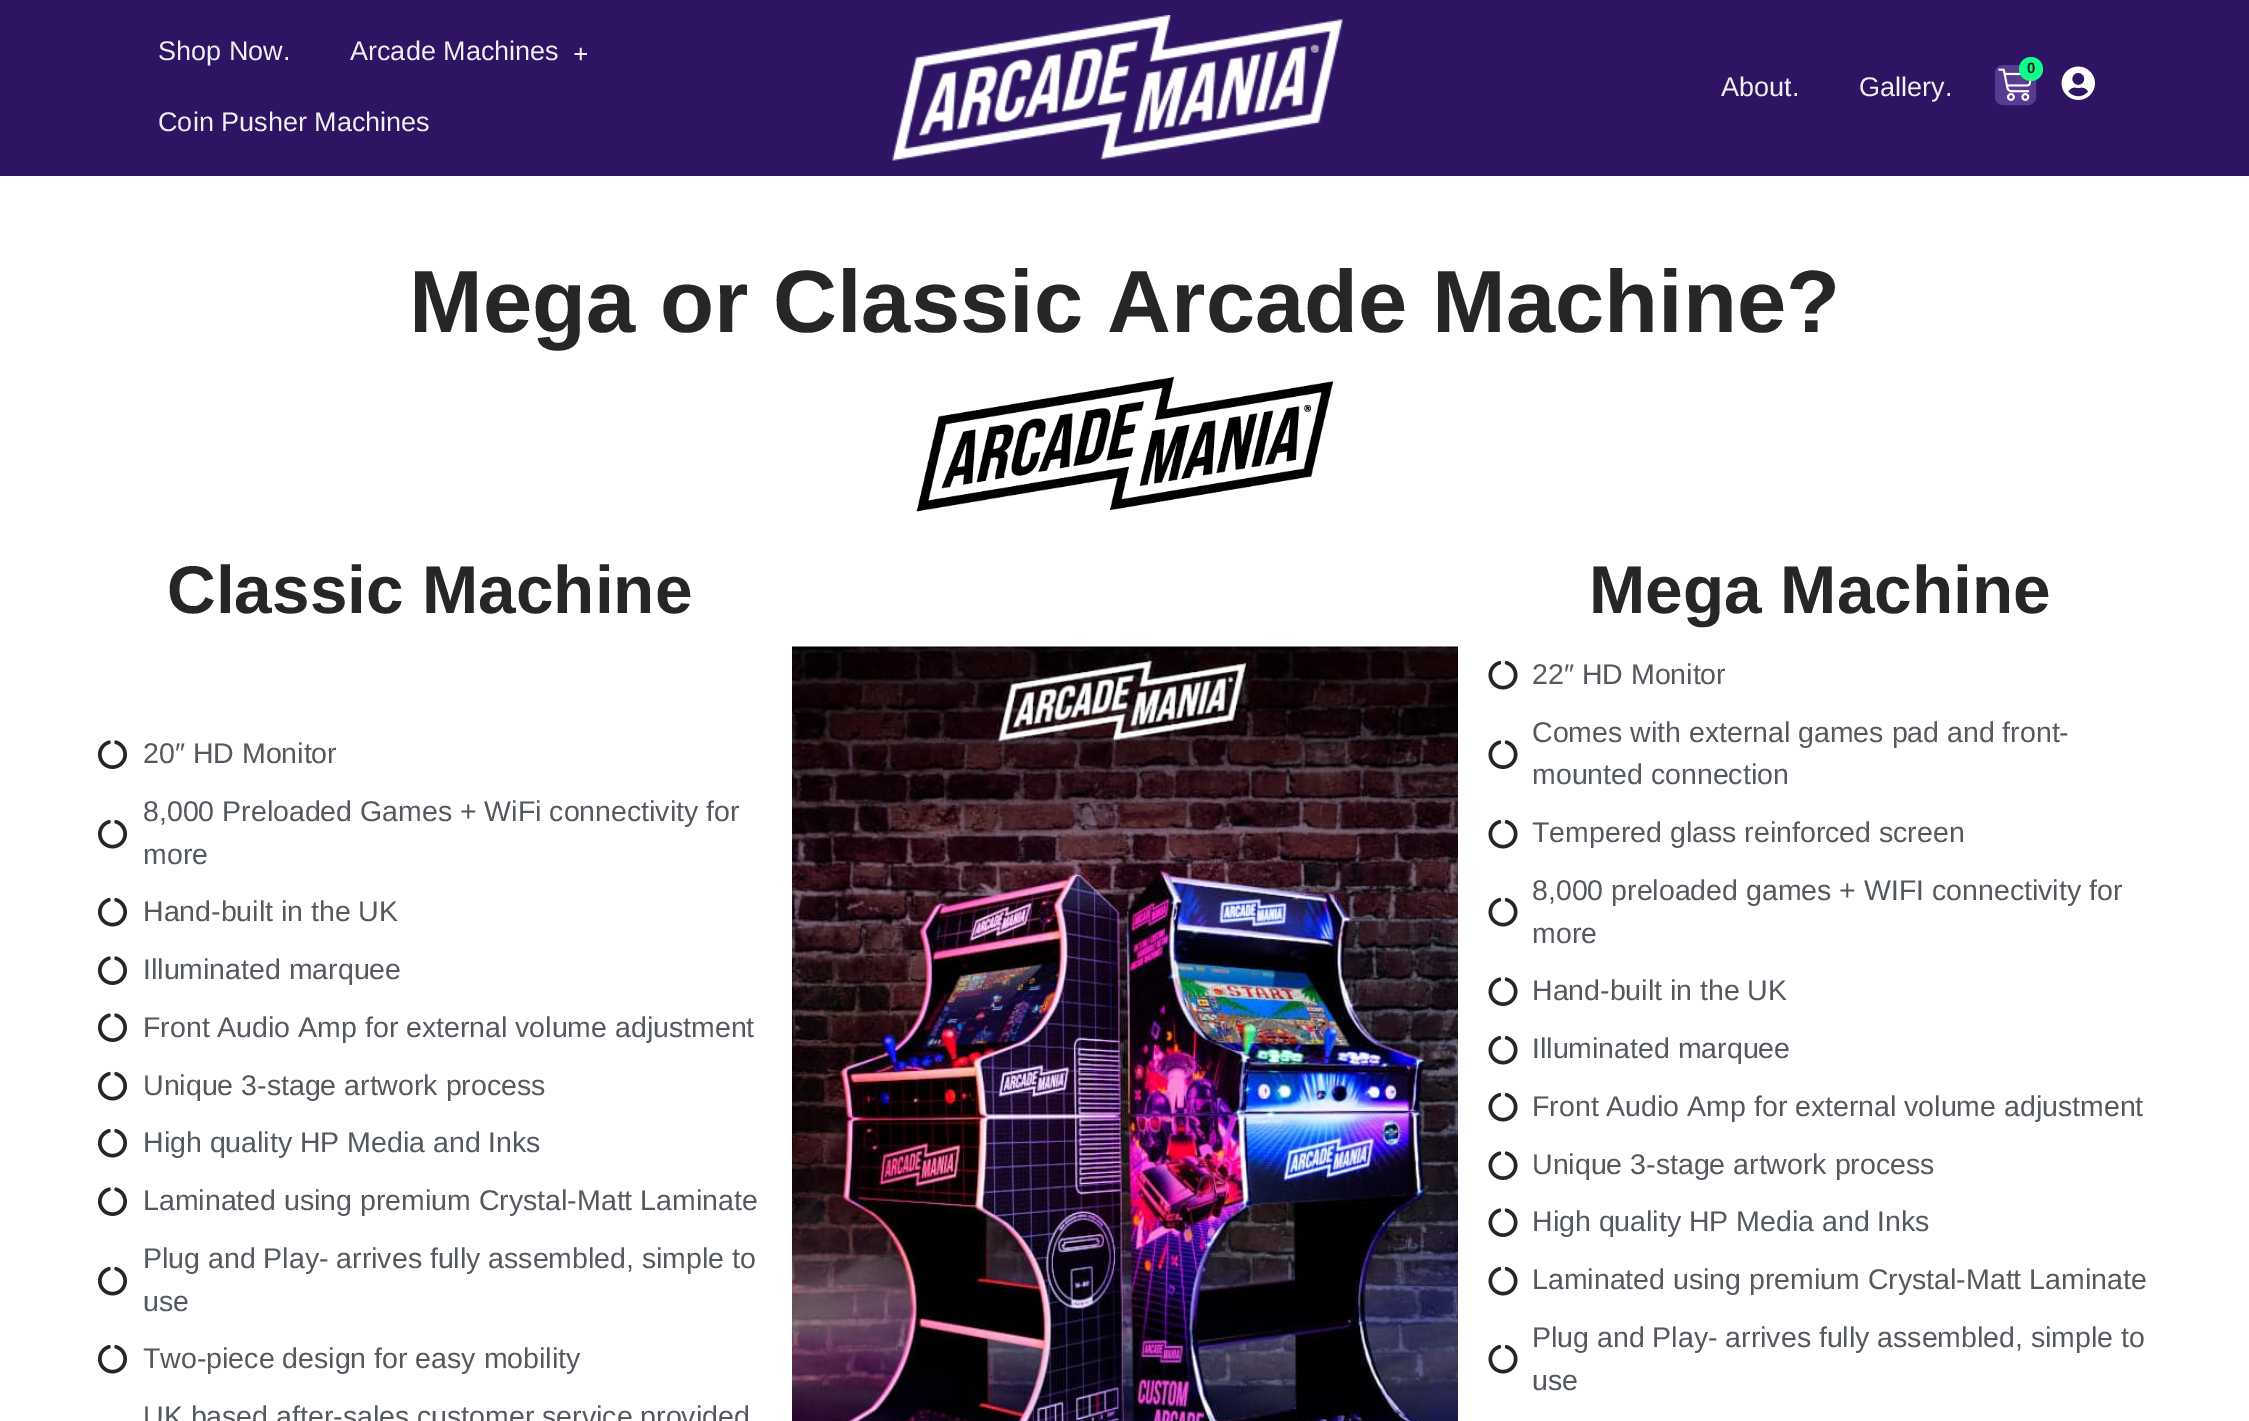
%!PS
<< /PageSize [2249 1421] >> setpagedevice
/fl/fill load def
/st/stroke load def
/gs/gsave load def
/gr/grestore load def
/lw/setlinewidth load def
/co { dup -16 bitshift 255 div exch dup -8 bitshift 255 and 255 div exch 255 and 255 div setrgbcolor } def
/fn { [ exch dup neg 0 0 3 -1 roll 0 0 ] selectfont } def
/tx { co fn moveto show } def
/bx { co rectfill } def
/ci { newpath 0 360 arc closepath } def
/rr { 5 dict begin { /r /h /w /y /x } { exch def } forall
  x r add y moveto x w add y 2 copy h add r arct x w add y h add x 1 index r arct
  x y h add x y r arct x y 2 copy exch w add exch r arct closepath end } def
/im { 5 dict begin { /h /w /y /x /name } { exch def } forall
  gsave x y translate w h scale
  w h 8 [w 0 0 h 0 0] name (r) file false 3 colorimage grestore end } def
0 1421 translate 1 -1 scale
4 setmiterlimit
0 0 2249 1421 16#FFFFFF bx
0 0 2249 176 16#2F1463 bx
(media/1.raw) 892 15 451 146 im
16#593B93 co
1996.5 66.5 38 37 6.5 rr gs fl gr
3 lw
st
(media/2.raw) 1998 68 34 33 im
16#13FB8B co
2031 69 12 ci fl
(media/3.raw) 2061 66 34 34 im
(media/4.raw) 916 376 418 136 im
(media/5.raw) 98 740 29 29 im
(media/6.raw) 98 819 29 30 im
(media/6.raw) 98 897 29 30 im
(media/5.raw) 98 956 29 29 im
(media/5.raw) 98 1013 29 29 im
(media/6.raw) 98 1071 29 30 im
(media/6.raw) 98 1128 29 30 im
(media/5.raw) 98 1187 29 29 im
(media/6.raw) 98 1266 29 30 im
(media/6.raw) 98 1344 29 30 im
(media/7.raw) 792 646 666 775 im
(media/8.raw) 1488 660 30 30 im
(media/9.raw) 1488 740 30 29 im
(media/8.raw) 1488 819 30 30 im
(media/8.raw) 1488 897 30 30 im
(media/9.raw) 1488 977 30 29 im
(media/8.raw) 1488 1035 30 30 im
(media/8.raw) 1488 1092 30 30 im
(media/9.raw) 1488 1151 30 29 im
(media/9.raw) 1488 1208 30 29 im
(media/8.raw) 1488 1266 30 30 im
(media/8.raw) 1488 1344 30 30 im
(Shop Now.) 158 60 /LiberationSans-Regular 27 16#EFEFEF tx
(Arcade Machines) 350 60 /LiberationSans-Regular 27 16#EFEFEF tx
(+) 573 63 /LiberationSerif-Bold 27 16#EFEFEF tx
(Coin Pusher Machines) 158 131 /LiberationSans-Regular 27 16#EFEFEF tx
(About.) 1721 96 /LiberationSans-Regular 27 16#EFEFEF tx
(Gallery.) 1859 96 /LiberationSans-Regular 27 16#EFEFEF tx
(0) 2027 73 /LiberationSans-Bold 15 16#262626 tx
(Mega or Classic Arcade Machine?) 409 332 /LiberationSans-Bold 88.5 16#262626 tx
(Classic Machine) 167 613 /LiberationSans-Bold 67.5 16#262626 tx
(20″ HD Monitor) 143 763 /LiberationSans-Regular 28.5 16#54595F tx
(8,000 Preloaded Games + WiFi connectivity for) 143 821 /LiberationSans-Regular 28.5 16#54595F tx
(more) 143 864 /LiberationSans-Regular 28.5 16#54595F tx
(Hand-built in the UK) 143 921 /LiberationSans-Regular 28.5 16#54595F tx
(Illuminated marquee) 143 979 /LiberationSans-Regular 28.5 16#54595F tx
(Front Audio Amp for external volume adjustment) 143 1037 /LiberationSans-Regular 28.5 16#54595F tx
(Unique 3-stage artwork process) 143 1095 /LiberationSans-Regular 28.5 16#54595F tx
(High quality HP Media and Inks) 143 1152 /LiberationSans-Regular 28.5 16#54595F tx
(Laminated using premium Crystal-Matt Laminate) 143 1210 /LiberationSans-Regular 28.5 16#54595F tx
(Plug and Play- arrives fully assembled, simple to) 143 1268 /LiberationSans-Regular 28.5 16#54595F tx
(use) 143 1311 /LiberationSans-Regular 28.5 16#54595F tx
(Two-piece design for easy mobility) 143 1368 /LiberationSans-Regular 28.5 16#54595F tx
(UK based after-sales customer service provided) 143 1426 /LiberationSans-Regular 28.5 16#54595F tx
(Mega Machine) 1589 613 /LiberationSans-Bold 67.5 16#262626 tx
(22″ HD Monitor) 1532 684 /LiberationSans-Regular 28.5 16#54595F tx
(Comes with external games pad and front-) 1532 742 /LiberationSans-Regular 28.5 16#54595F tx
(mounted connection) 1532 784 /LiberationSans-Regular 28.5 16#54595F tx
(Tempered glass reinforced screen) 1532 842 /LiberationSans-Regular 28.5 16#54595F tx
(8,000 preloaded games + WIFI connectivity for) 1532 900 /LiberationSans-Regular 28.5 16#54595F tx
(more) 1532 943 /LiberationSans-Regular 28.5 16#54595F tx
(Hand-built in the UK) 1532 1000 /LiberationSans-Regular 28.5 16#54595F tx
(Illuminated marquee) 1532 1058 /LiberationSans-Regular 28.5 16#54595F tx
(Front Audio Amp for external volume adjustment) 1532 1116 /LiberationSans-Regular 28.5 16#54595F tx
(Unique 3-stage artwork process) 1532 1174 /LiberationSans-Regular 28.5 16#54595F tx
(High quality HP Media and Inks) 1532 1231 /LiberationSans-Regular 28.5 16#54595F tx
(Laminated using premium Crystal-Matt Laminate) 1532 1289 /LiberationSans-Regular 28.5 16#54595F tx
(Plug and Play- arrives fully assembled, simple to) 1532 1347 /LiberationSans-Regular 28.5 16#54595F tx
(use) 1532 1390 /LiberationSans-Regular 28.5 16#54595F tx
showpage
